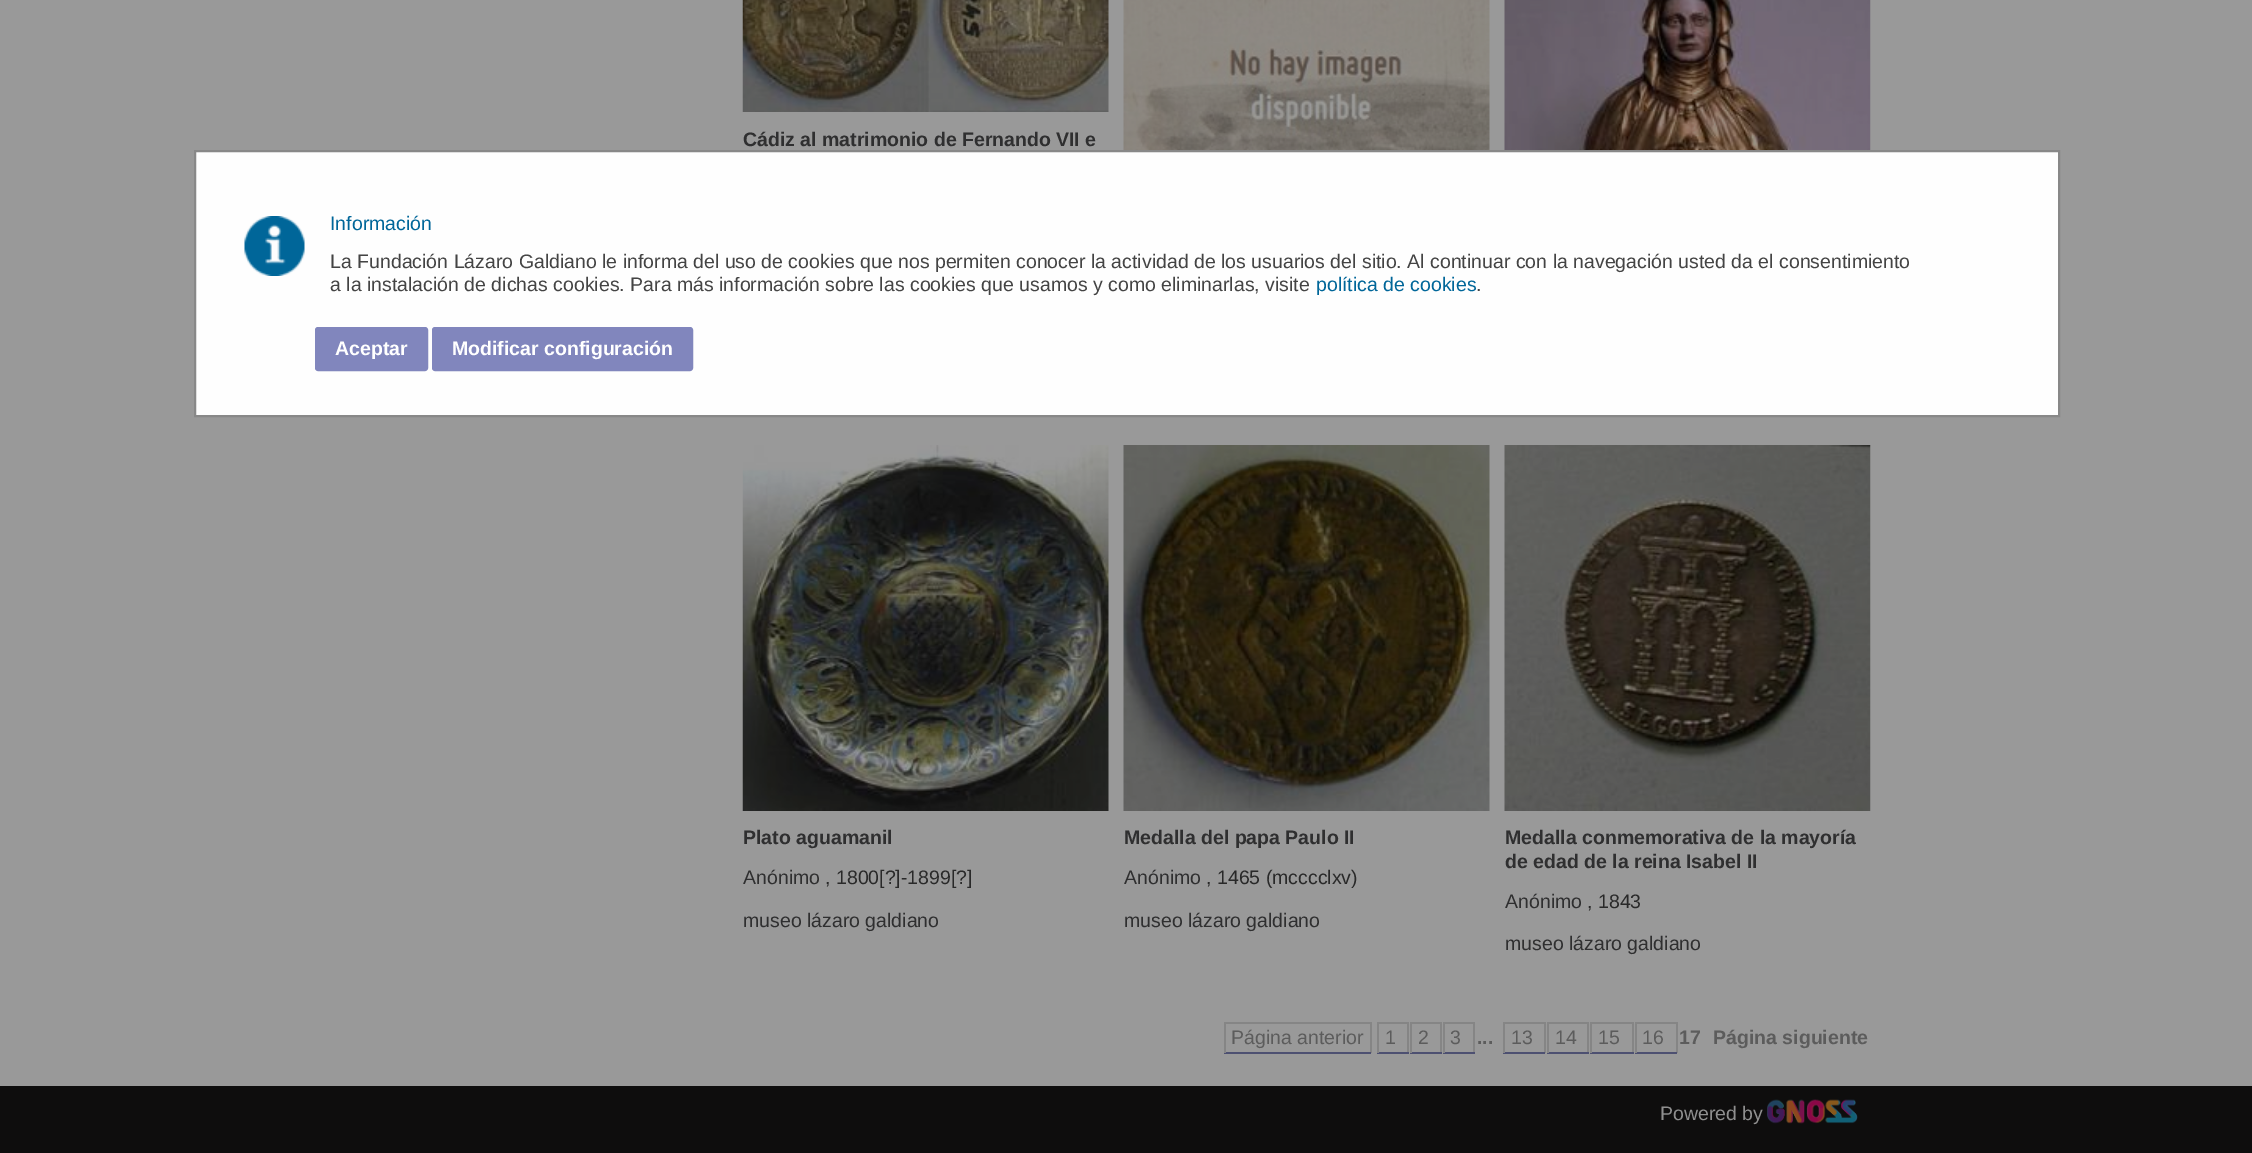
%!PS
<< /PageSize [2252 1153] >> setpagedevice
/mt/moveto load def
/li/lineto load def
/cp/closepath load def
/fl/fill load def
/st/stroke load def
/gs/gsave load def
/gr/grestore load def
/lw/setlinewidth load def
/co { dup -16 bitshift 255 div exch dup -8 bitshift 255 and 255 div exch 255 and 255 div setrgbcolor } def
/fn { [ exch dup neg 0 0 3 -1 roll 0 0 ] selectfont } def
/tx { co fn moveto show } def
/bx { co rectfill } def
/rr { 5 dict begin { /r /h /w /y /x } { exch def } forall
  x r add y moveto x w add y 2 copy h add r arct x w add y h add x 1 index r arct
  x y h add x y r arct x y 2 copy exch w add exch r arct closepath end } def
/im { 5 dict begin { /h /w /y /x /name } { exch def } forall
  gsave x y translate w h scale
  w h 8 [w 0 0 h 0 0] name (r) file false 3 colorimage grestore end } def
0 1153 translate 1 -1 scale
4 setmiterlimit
0 0 2252 1153 16#999999 bx
(media/1.raw) 742 0 367 112 im
(media/2.raw) 1123 0 367 150 im
(media/3.raw) 1504 0 367 150 im
(media/4.raw) 742 445 367 366 im
(media/5.raw) 1123 445 367 366 im
(media/6.raw) 1504 445 367 366 im
1224 1022 147 2 16#858585 bx
1370 1022 2 31 16#858585 bx
1224 1052 147 2 16#4D5071 bx
1224 1022 2 31 16#858585 bx
1377 1022 32 2 16#858585 bx
1407 1022 2 31 16#858585 bx
1377 1052 32 2 16#4D5071 bx
1377 1022 2 31 16#858585 bx
1410 1022 32 2 16#858585 bx
1440 1022 2 31 16#858585 bx
1410 1052 32 2 16#4D5071 bx
1410 1022 2 31 16#858585 bx
1443 1022 32 2 16#858585 bx
1473 1022 2 31 16#858585 bx
1443 1052 32 2 16#4D5071 bx
1443 1022 2 31 16#858585 bx
1503 1022 42 2 16#858585 bx
1544 1022 2 31 16#858585 bx
1503 1052 42 2 16#4D5071 bx
1503 1022 2 31 16#858585 bx
1547 1022 42 2 16#858585 bx
1587 1022 2 31 16#858585 bx
1547 1052 42 2 16#4D5071 bx
1547 1022 2 31 16#858585 bx
1590 1022 44 2 16#858585 bx
1632 1022 2 31 16#858585 bx
1590 1052 44 2 16#4D5071 bx
1590 1022 2 31 16#858585 bx
1635 1022 42 2 16#858585 bx
1676 1022 2 31 16#858585 bx
1635 1052 42 2 16#4D5071 bx
1635 1022 2 31 16#858585 bx
16#FEFEFE co
195 151 mt 2059 151 li 2059 416 li 195 416 li cp gs fl gr
16#888888 co
2 lw
st
(media/7.raw) 244 216 61 60 im
16#8186BD co
316 328 111 42 2 rr gs fl gr
st
433 328 259 42 2 rr gs fl gr
st
0 1086 2252 67 16#0E0D0D bx
(media/8.raw) 1767 1099 91 25 im
(Cádiz al matrimonio de Fernando VII e) 743 146 /LiberationSans-Bold 19.5 16#2F2F30 tx
(Plato aguamanil) 743 844 /LiberationSans-Bold 19.5 16#2F2F30 tx
(Anónimo) 743 884 /LiberationSans-Regular 19.5 16#2F2F30 tx
(, 1800[?]-1899[?]) 825 884 /LiberationSans-Regular 19.5 16#292929 tx
(museo lázaro galdiano) 743 927 /LiberationSans-Regular 19.5 16#2F2F30 tx
(Medalla del papa Paulo II) 1124 844 /LiberationSans-Bold 19.5 16#2F2F30 tx
(Anónimo) 1124 884 /LiberationSans-Regular 19.5 16#2F2F30 tx
(, 1465 \(mcccclxv\)) 1206 884 /LiberationSans-Regular 19.5 16#292929 tx
(museo lázaro galdiano) 1124 927 /LiberationSans-Regular 19.5 16#2F2F30 tx
(Medalla conmemorativa de la mayoría) 1505 844 /LiberationSans-Bold 19.5 16#2F2F30 tx
(de edad de la reina Isabel II) 1505 868 /LiberationSans-Bold 19.5 16#2F2F30 tx
(Anónimo) 1505 908 /LiberationSans-Regular 19.5 16#2F2F30 tx
(, 1843) 1587 908 /LiberationSans-Regular 19.5 16#292929 tx
(museo lázaro galdiano) 1505 950 /LiberationSans-Regular 19.5 16#2F2F30 tx
(Página anterior) 1231 1044 /LiberationSans-Regular 19.5 16#5C5C5C tx
(1) 1385 1044 /LiberationSans-Regular 19.5 16#5C5C5C tx
(2) 1418 1044 /LiberationSans-Regular 19.5 16#5C5C5C tx
(3) 1450 1044 /LiberationSans-Regular 19.5 16#5C5C5C tx
(...) 1477 1044 /LiberationSans-Bold 19.5 16#5C5C5C tx
(13) 1511 1044 /LiberationSans-Regular 19.5 16#5C5C5C tx
(14) 1555 1044 /LiberationSans-Regular 19.5 16#5C5C5C tx
(15) 1598 1044 /LiberationSans-Regular 19.5 16#5C5C5C tx
(16) 1642 1044 /LiberationSans-Regular 19.5 16#5C5C5C tx
(17) 1679 1044 /LiberationSans-Bold 19.5 16#5C5C5C tx
(Página siguiente) 1713 1044 /LiberationSans-Bold 19.5 16#5C5C5C tx
(Información) 330 230 /LiberationSans-Regular 19.5 16#006699 tx
(La Fundación Lázaro Galdiano le informa del uso de cookies que nos permiten conocer la actividad de los usuarios del sitio. Al continuar con la navegación usted da el consentimiento) 330 268 /LiberationSans-Regular 19.5 16#444444 tx
(a la instalación de dichas cookies. Para más información sobre las cookies que usamos y como eliminarlas, visite) 330 291 /LiberationSans-Regular 19.5 16#444444 tx
(política de cookies) 1316 291 /LiberationSans-Regular 19.5 16#006699 tx
(.) 1476 291 /LiberationSans-Regular 19.5 16#444444 tx
(Aceptar) 335 355 /LiberationSans-Bold 19.5 16#FFFFFF tx
(Modificar configuración) 452 355 /LiberationSans-Bold 19.5 16#FFFFFF tx
(Powered by) 1660 1120 /LiberationSans-Regular 19.5 16#8F8F8F tx
showpage
